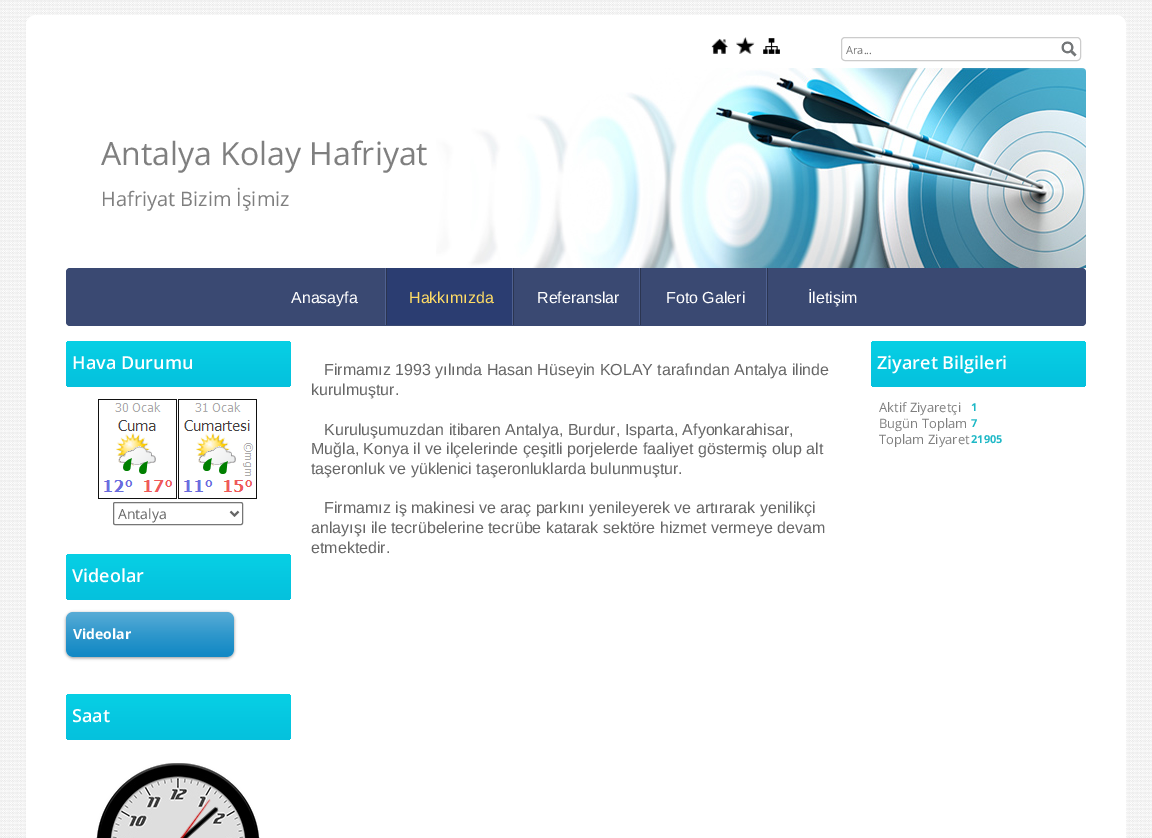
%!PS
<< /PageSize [1152 838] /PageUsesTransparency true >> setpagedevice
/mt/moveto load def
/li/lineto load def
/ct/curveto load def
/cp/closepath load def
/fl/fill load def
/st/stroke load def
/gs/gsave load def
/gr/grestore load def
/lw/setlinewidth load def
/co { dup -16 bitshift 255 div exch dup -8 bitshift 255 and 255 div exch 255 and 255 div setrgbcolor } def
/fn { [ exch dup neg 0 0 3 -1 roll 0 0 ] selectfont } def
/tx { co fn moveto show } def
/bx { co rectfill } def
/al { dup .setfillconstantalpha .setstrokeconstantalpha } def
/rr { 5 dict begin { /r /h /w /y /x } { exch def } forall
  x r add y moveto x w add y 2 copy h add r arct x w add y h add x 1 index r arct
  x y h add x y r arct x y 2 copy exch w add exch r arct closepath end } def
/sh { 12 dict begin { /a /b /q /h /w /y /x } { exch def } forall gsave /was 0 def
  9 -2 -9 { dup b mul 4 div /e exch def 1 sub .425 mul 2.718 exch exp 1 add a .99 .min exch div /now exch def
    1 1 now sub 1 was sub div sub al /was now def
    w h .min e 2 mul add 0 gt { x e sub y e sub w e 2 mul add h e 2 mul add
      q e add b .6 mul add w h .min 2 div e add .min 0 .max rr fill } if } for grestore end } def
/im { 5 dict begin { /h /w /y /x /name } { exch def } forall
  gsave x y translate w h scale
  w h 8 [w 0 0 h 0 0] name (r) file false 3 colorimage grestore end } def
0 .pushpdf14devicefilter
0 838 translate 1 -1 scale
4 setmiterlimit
0 0 1152 838 16#FFFFFF bx
(media/1.raw) 0 0 1152 838 im
36 15 mt 1116 15 li 1121.5 15 1126 19.5 1126 25 ct 1126 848 li 26 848 li 26 25 li 26 19.5 30.5 15 36 15 ct cp fl
(media/2.raw) 711 38 17 16 im
(media/3.raw) 736 37 19 17 im
(media/4.raw) 763 38 17 16 im
16#CCCCCC co
841.5 37.5 239 23 3.5 rr st
(media/5.raw) 1061 41 16 16 im
(media/6.raw) 436 68 650 200 im
16#3A4972 co
66 268 1020 58 4 rr fl
385 268 1 57 16#4F6191 bx
512 268 1 57 16#4F6191 bx
386 268 1 57 16#2B3550 bx
387 268 125 57 16#2B3D71 bx
639 268 1 57 16#4F6191 bx
513 268 1 57 16#2B3550 bx
766 268 1 57 16#4F6191 bx
640 268 1 57 16#2B3550 bx
767 268 1 57 16#2B3550 bx
gs 66 341 225 46 4 rr clip newpath
<< /ShadingType 2 /ColorSpace /DeviceRGB /Coords [179 341 179 387] /Extend [true true] /Function << /FunctionType 3 /Domain [0 1] /Functions [<< /FunctionType 2 /Domain [0 1] /C0 [.024 .816 .898] /C1 [.024 .784 .882] /N 1 >> << /FunctionType 2 /Domain [0 1] /C0 [.024 .784 .882] /C1 [.02 .757 .867] /N 1 >>] /Bounds [.5] /Encode [0 1 0 1] >> >> shfill gr
(media/7.raw) 98 399 159 100 im
16#767676 co
113.5 502.5 129 22 1.5 rr st
16#666666 co
2 lw
230.5 511.5 mt 234.5 515.5 li 238.5 511.5 li st
gs 66 554 225 46 4 rr clip newpath
<< /ShadingType 2 /ColorSpace /DeviceRGB /Coords [179 554 179 600] /Extend [true true] /Function << /FunctionType 3 /Domain [0 1] /Functions [<< /FunctionType 2 /Domain [0 1] /C0 [.024 .816 .898] /C1 [.024 .784 .882] /N 1 >> << /FunctionType 2 /Domain [0 1] /C0 [.024 .784 .882] /C1 [.02 .757 .867] /N 1 >>] /Bounds [.5] /Encode [0 1 0 1] >> >> shfill gr
16#000000 co
66 613 168 45 7 1.5 .4 sh
16#0080C0 co
66 612 168 45 7 rr fl
(media/8.raw) 66 612 168 45 im
gs 66 694 225 46 4 rr clip newpath
<< /ShadingType 2 /ColorSpace /DeviceRGB /Coords [179 694 179 740] /Extend [true true] /Function << /FunctionType 3 /Domain [0 1] /Functions [<< /FunctionType 2 /Domain [0 1] /C0 [.024 .816 .898] /C1 [.024 .784 .882] /N 1 >> << /FunctionType 2 /Domain [0 1] /C0 [.024 .784 .882] /C1 [.02 .757 .867] /N 1 >>] /Bounds [.5] /Encode [0 1 0 1] >> >> shfill gr
(media/9.raw) 96 763 164 75 im
(media/11.raw) 180 806 39 32 im
(media/10.raw) 180 799 31 39 im
gs 871 341 215 46 4 rr clip newpath
<< /ShadingType 2 /ColorSpace /DeviceRGB /Coords [979 341 979 387] /Extend [true true] /Function << /FunctionType 3 /Domain [0 1] /Functions [<< /FunctionType 2 /Domain [0 1] /C0 [.024 .816 .898] /C1 [.024 .784 .882] /N 1 >> << /FunctionType 2 /Domain [0 1] /C0 [.024 .784 .882] /C1 [.02 .757 .867] /N 1 >>] /Bounds [.5] /Encode [0 1 0 1] >> >> shfill gr
(Ara...) 846 54 /OpenSans-Regular 11 16#757575 tx
(Antalya Kolay Hafriyat) 101 165 /OpenSans-Regular 32 16#7F7F7F tx
(Hafriyat Bizim İşimiz) 101 206 /OpenSans-Regular 20 16#7F7F7F tx
(Anasayfa) 291 303 /LiberationSans-Regular 16 16#FFFFFF tx
(Hakkımızda) 409 303 /LiberationSans-Regular 16 16#FFDC65 tx
(Referanslar) 537 303 /LiberationSans-Regular 16 16#FFFFFF tx
(Foto Galeri) 666 303 /LiberationSans-Regular 16 16#FFFFFF tx
(İletişim) 808 303 /LiberationSans-Regular 16 16#FFFFFF tx
(Hava Durumu) 72 369 /OpenSans-SemiBold 18 16#FFFFFF tx
(Antalya) 118 519 /OpenSans-Regular 14 16#666666 tx
(Videolar) 72 582 /OpenSans-SemiBold 18 16#FFFFFF tx
(Videolar) 73 639 /OpenSans-Bold 14 16#FFFFFF tx
(Saat) 72 722 /OpenSans-SemiBold 18 16#FFFFFF tx
(Firmamız 1993 yılında Hasan Hüseyin KOLAY tarafından Antalya ilinde) 324 375 /LiberationSans-Regular 16 16#666666 tx
(kurulmuştur.) 311 395 /LiberationSans-Regular 16 16#666666 tx
(Kuruluşumuzdan itibaren Antalya, Burdur, Isparta, Afyonkarahisar,) 324 435 /LiberationSans-Regular 16 16#666666 tx
(Muğla, Konya il ve ilçelerinde çeşitli porjelerde faaliyet göstermiş olup alt) 311 454 /LiberationSans-Regular 16 16#666666 tx
(taşeronluk ve yüklenici taşeronluklarda bulunmuştur.) 311 474 /LiberationSans-Regular 16 16#666666 tx
(Firmamız iş makinesi ve araç parkını yenileyerek ve artırarak yenilikçi) 324 513 /LiberationSans-Regular 16 16#666666 tx
(anlayışı ile tecrübelerine tecrübe katarak sektöre hizmet vermeye devam) 311 533 /LiberationSans-Regular 16 16#666666 tx
(etmektedir.) 311 553 /LiberationSans-Regular 16 16#666666 tx
(Ziyaret Bilgileri) 877 369 /OpenSans-SemiBold 18 16#FFFFFF tx
(Aktif Ziyaretçi) 879 412 /OpenSans-Regular 13 16#7F7F7F tx
(1) 971 411 /OpenSans-Bold 11 16#1EB8C6 tx
(Bugün Toplam) 879 428 /OpenSans-Regular 13 16#7F7F7F tx
(7) 971 427 /OpenSans-Bold 11 16#1EB8C6 tx
(Toplam Ziyaret) 879 444 /OpenSans-Regular 13 16#7F7F7F tx
(21905) 971 443 /OpenSans-Bold 11 16#1EB8C6 tx
.poppdf14devicefilter showpage
